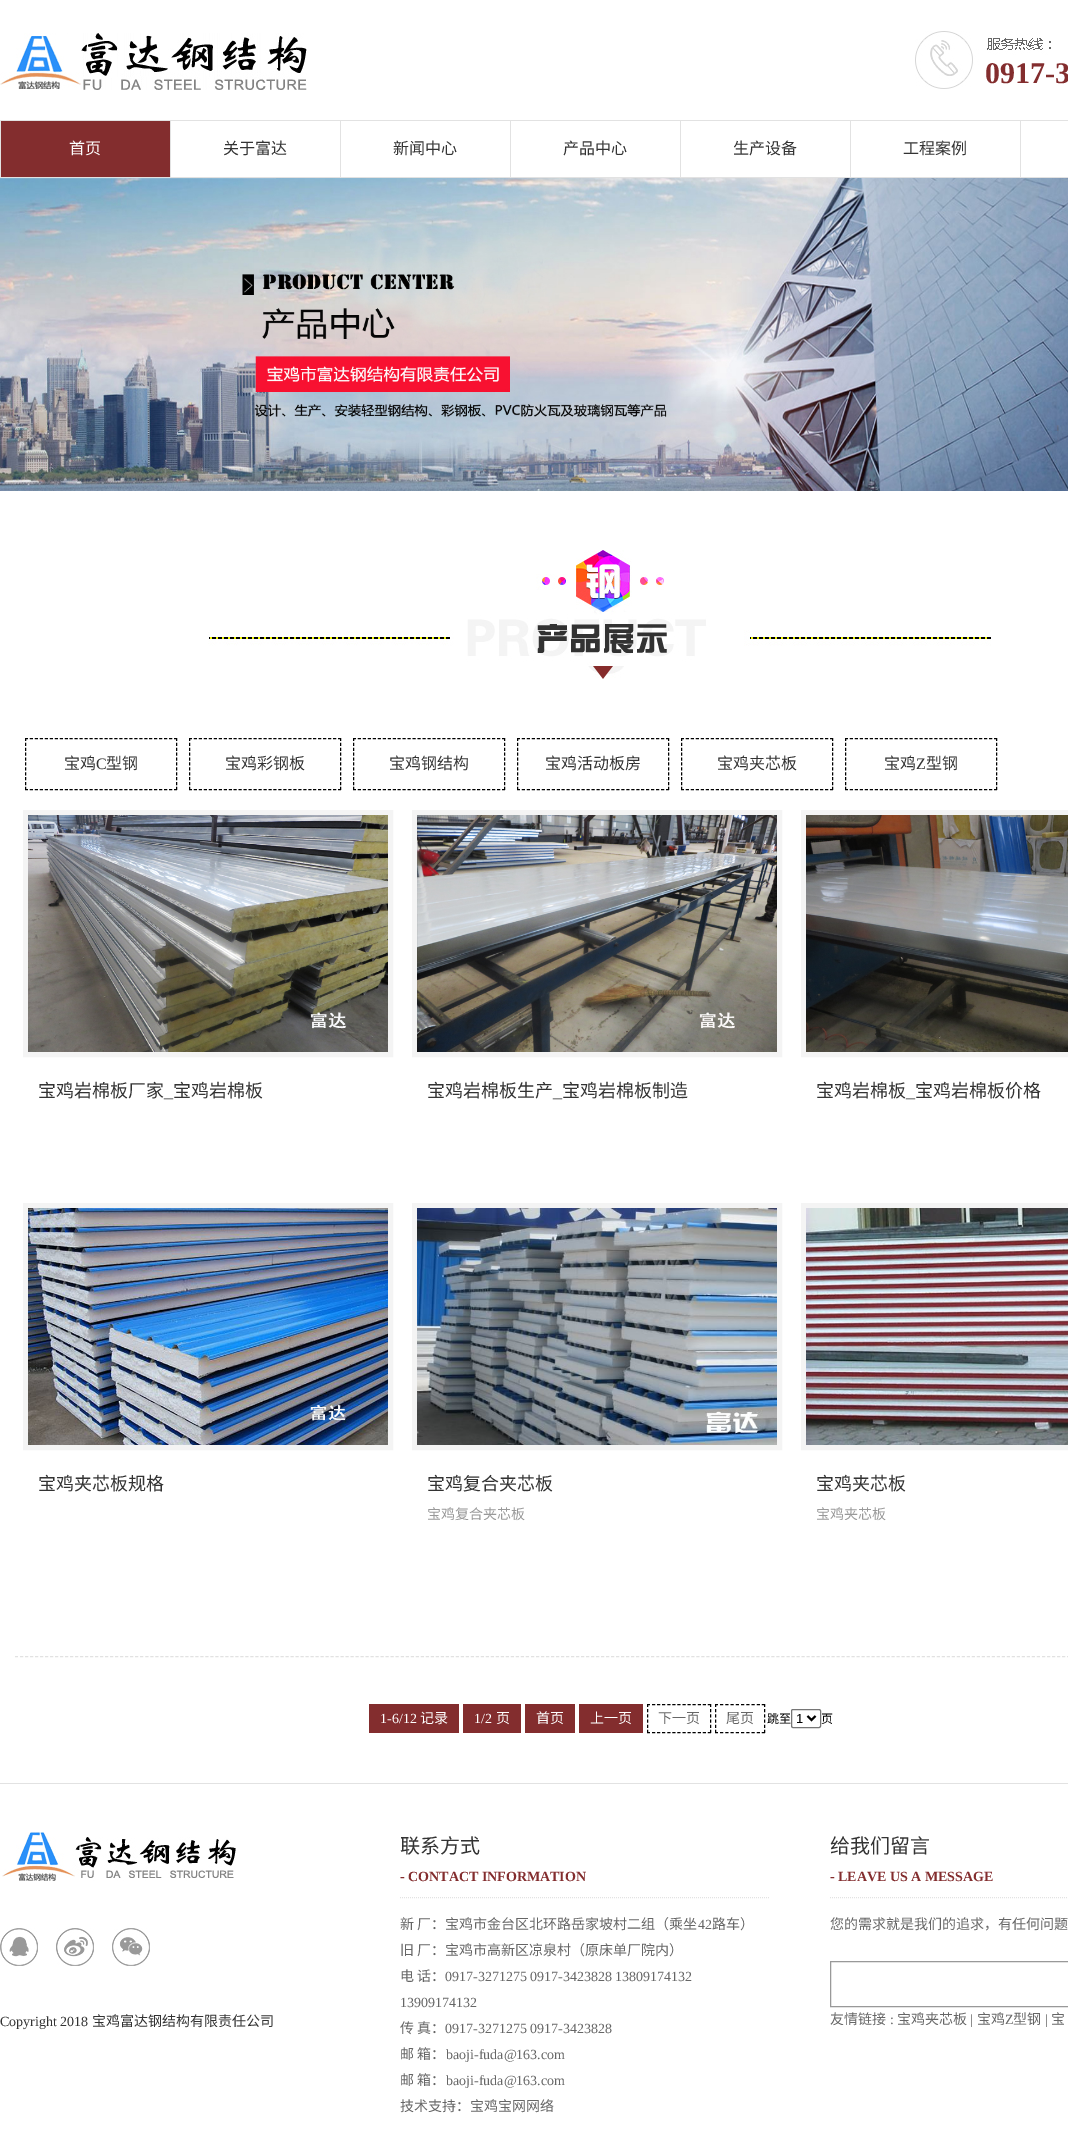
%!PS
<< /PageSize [1068 2137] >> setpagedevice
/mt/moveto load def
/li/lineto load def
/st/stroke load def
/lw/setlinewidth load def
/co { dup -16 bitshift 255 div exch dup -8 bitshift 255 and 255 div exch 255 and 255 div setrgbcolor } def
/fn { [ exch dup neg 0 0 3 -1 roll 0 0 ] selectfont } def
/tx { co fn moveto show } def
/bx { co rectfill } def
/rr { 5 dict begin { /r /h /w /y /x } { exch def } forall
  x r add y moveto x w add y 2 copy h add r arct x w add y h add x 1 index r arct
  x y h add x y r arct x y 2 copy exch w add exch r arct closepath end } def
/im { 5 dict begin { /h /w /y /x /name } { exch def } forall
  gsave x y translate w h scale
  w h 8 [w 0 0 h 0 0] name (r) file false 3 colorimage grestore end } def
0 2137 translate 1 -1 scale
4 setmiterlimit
0 0 1068 2137 16#FFFFFF bx
0 120 1068 1 16#E2E2E2 bx
(media/1.raw) 0 33 307 57 im
(media/2.raw) 915 31 136 58 im
0 177 1068 1 16#E2E2E2 bx
0 121 1 56 16#E2E2E2 bx
1 121 169 56 16#832D2E bx
170 121 1 56 16#E2E2E2 bx
340 121 1 56 16#E2E2E2 bx
510 121 1 56 16#E2E2E2 bx
680 121 1 56 16#E2E2E2 bx
850 121 1 56 16#E2E2E2 bx
1020 121 1 56 16#E2E2E2 bx
(media/3.raw) 0 178 1068 313 im
(media/4.raw) 208 550 783 129 im
16#000000 co
[3 1.97] 0 setdash
25 738.5 mt 177 738.5 li st
[3 1.9] 0 setdash
176.5 738 mt 176.5 790 li st
[3 1.97] 0 setdash
25 789.5 mt 177 789.5 li st
[3 1.9] 0 setdash
25.5 738 mt 25.5 790 li st
[3 1.97] 0 setdash
189 738.5 mt 341 738.5 li st
[3 1.9] 0 setdash
340.5 738 mt 340.5 790 li st
[3 1.97] 0 setdash
189 789.5 mt 341 789.5 li st
[3 1.9] 0 setdash
189.5 738 mt 189.5 790 li st
[3 1.97] 0 setdash
353 738.5 mt 505 738.5 li st
[3 1.9] 0 setdash
504.5 738 mt 504.5 790 li st
[3 1.97] 0 setdash
353 789.5 mt 505 789.5 li st
[3 1.9] 0 setdash
353.5 738 mt 353.5 790 li st
[3 1.97] 0 setdash
517 738.5 mt 669 738.5 li st
[3 1.9] 0 setdash
668.5 738 mt 668.5 790 li st
[3 1.97] 0 setdash
517 789.5 mt 669 789.5 li st
[3 1.9] 0 setdash
517.5 738 mt 517.5 790 li st
[3 1.97] 0 setdash
681 738.5 mt 833 738.5 li st
[3 1.9] 0 setdash
832.5 738 mt 832.5 790 li st
[3 1.97] 0 setdash
681 789.5 mt 833 789.5 li st
[3 1.9] 0 setdash
681.5 738 mt 681.5 790 li st
[3 1.97] 0 setdash
845 738.5 mt 997 738.5 li st
[3 1.9] 0 setdash
996.5 738 mt 996.5 790 li st
[3 1.97] 0 setdash
845 789.5 mt 997 789.5 li st
[3 1.9] 0 setdash
845.5 738 mt 845.5 790 li st
16#F4F4F4 co
5 lw
[] 0 setdash
25.5 812.5 365 242 rectstroke
(media/5.raw) 28 815 360 237 im
414.5 812.5 365 242 rectstroke
(media/6.raw) 417 815 360 237 im
803.5 812.5 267 242 rectstroke
(media/7.raw) 806 815 262 237 im
25.5 1205.5 365 242 rectstroke
(media/8.raw) 28 1208 360 237 im
414.5 1205.5 365 242 rectstroke
(media/9.raw) 417 1208 360 237 im
803.5 1205.5 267 242 rectstroke
(media/10.raw) 806 1208 262 237 im
16#E2E2E2 co
1 lw
[3 2.01] 0 setdash
15 1656.5 mt 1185 1656.5 li st
369 1704 90 29 16#832D2E bx
463 1704 58 29 16#832D2E bx
525 1704 50 29 16#832D2E bx
579 1704 64 29 16#832D2E bx
16#000000 co
[3 2.08] 0 setdash
647 1704.5 mt 711 1704.5 li st
[3 2.2] 0 setdash
710.5 1704 mt 710.5 1733 li st
[3 2.08] 0 setdash
647 1732.5 mt 711 1732.5 li st
[3 2.2] 0 setdash
647.5 1704 mt 647.5 1733 li st
[3 2.22] 0 setdash
715 1704.5 mt 765 1704.5 li st
[3 2.2] 0 setdash
764.5 1704 mt 764.5 1733 li st
[3 2.22] 0 setdash
715 1732.5 mt 765 1732.5 li st
[3 2.2] 0 setdash
715.5 1704 mt 715.5 1733 li st
16#767676 co
[] 0 setdash
791.5 1709.5 29 18 1.5 rr st
16#000000 co
2 lw
807.5 1716 mt 811.5 1720 li 815.5 1716 li st
0 1783 1068 1 16#E2E2E2 bx
(media/11.raw) 2 1832 234 49 im
(media/12.raw) 0 1928 38 38 im
(media/13.raw) 56 1928 38 38 im
(media/14.raw) 112 1928 38 38 im
1 lw
[1 1] 0 setdash
400 1897.5 mt 770 1897.5 li st
830 1897.5 mt 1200 1897.5 li st
16#999999 co
[] 0 setdash
830.5 1961.5 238 45 rectstroke
(0917-3) 985 83 /LiberationSerif-Bold 30 16#832D2E tx
(首页) 69 154 /NotoSansCJKSC-Regular 16 16#FFFFFF tx
(关于富达) 223 154 /NotoSansCJKSC-Regular 16 16#333333 tx
(新闻中心) 393 154 /NotoSansCJKSC-Regular 16 16#333333 tx
(产品中心) 563 154 /NotoSansCJKSC-Regular 16 16#333333 tx
(生产设备) 733 154 /NotoSansCJKSC-Regular 16 16#333333 tx
(工程案例) 903 154 /NotoSansCJKSC-Regular 16 16#333333 tx
(宝鸡) 64 769 /NotoSansCJKSC-Regular 16 16#333333 tx
(C) 96 769 /LiberationSerif-Regular 16 16#333333 tx
(型钢) 106 769 /NotoSansCJKSC-Regular 16 16#333333 tx
(宝鸡彩钢板) 225 769 /NotoSansCJKSC-Regular 16 16#333333 tx
(宝鸡钢结构) 389 769 /NotoSansCJKSC-Regular 16 16#333333 tx
(宝鸡活动板房) 545 769 /NotoSansCJKSC-Regular 16 16#333333 tx
(宝鸡夹芯板) 717 769 /NotoSansCJKSC-Regular 16 16#333333 tx
(宝鸡) 884 769 /NotoSansCJKSC-Regular 16 16#333333 tx
(Z) 916 769 /LiberationSerif-Regular 16 16#333333 tx
(型钢) 926 769 /NotoSansCJKSC-Regular 16 16#333333 tx
(宝鸡岩棉板厂家) 38 1097 /NotoSansCJKSC-Regular 18 16#333333 tx
(_) 164 1097 /LiberationSerif-Regular 18 16#333333 tx
(宝鸡岩棉板) 173 1097 /NotoSansCJKSC-Regular 18 16#333333 tx
(宝鸡岩棉板生产) 427 1097 /NotoSansCJKSC-Regular 18 16#333333 tx
(_) 553 1097 /LiberationSerif-Regular 18 16#333333 tx
(宝鸡岩棉板制造) 562 1097 /NotoSansCJKSC-Regular 18 16#333333 tx
(宝鸡岩棉板) 816 1097 /NotoSansCJKSC-Regular 18 16#333333 tx
(_) 906 1097 /LiberationSerif-Regular 18 16#333333 tx
(宝鸡岩棉板价格) 915 1097 /NotoSansCJKSC-Regular 18 16#333333 tx
(宝鸡夹芯板规格) 38 1490 /NotoSansCJKSC-Regular 18 16#333333 tx
(宝鸡复合夹芯板) 427 1490 /NotoSansCJKSC-Regular 18 16#333333 tx
(宝鸡复合夹芯板) 427 1519 /NotoSansCJKSC-Regular 14 16#999999 tx
(宝鸡夹芯板) 816 1490 /NotoSansCJKSC-Regular 18 16#333333 tx
(宝鸡夹芯板) 816 1519 /NotoSansCJKSC-Regular 14 16#999999 tx
(1-6/12) 380 1723 /LiberationSerif-Regular 14 16#FFFFFF tx
(记录) 420 1723 /NotoSansCJKSC-Regular 14 16#FFFFFF tx
(1/2) 474 1723 /LiberationSerif-Regular 14 16#FFFFFF tx
(页) 496 1723 /NotoSansCJKSC-Regular 14 16#FFFFFF tx
(首页) 536 1723 /NotoSansCJKSC-Regular 14 16#FFFFFF tx
(上一页) 590 1723 /NotoSansCJKSC-Regular 14 16#FFFFFF tx
(下一页) 658 1723 /NotoSansCJKSC-Regular 14 16#666666 tx
(尾页) 726 1723 /NotoSansCJKSC-Regular 14 16#666666 tx
(跳至) 767 1723 /NotoSansCJKSC-Regular 12 16#000000 tx
(1) 796 1723 /LiberationSans-Regular 13 16#000000 tx
(页) 821 1723 /NotoSansCJKSC-Regular 12 16#000000 tx
(Copyright 2018) 0 2026 /LiberationSerif-Regular 14 16#333333 tx
(宝鸡富达钢结构有限责任公司) 92 2026 /NotoSansCJKSC-Regular 14 16#333333 tx
(联系方式) 400 1853 /NotoSansCJKSC-Regular 20 16#333333 tx
(- CONTACT INFORMATION) 400 1881 /LiberationSerif-Bold 14 16#832D2E tx
(新 厂：宝鸡市金台区北环路岳家坡村二组（乘坐) 400 1929 /NotoSansCJKSC-Regular 14 16#666666 tx
(42) 698 1929 /LiberationSerif-Regular 14 16#666666 tx
(路车）) 712 1929 /NotoSansCJKSC-Regular 14 16#666666 tx
(旧 厂：宝鸡市高新区凉泉村（原床单厂院内）) 400 1955 /NotoSansCJKSC-Regular 14 16#666666 tx
(电 话：) 400 1981 /NotoSansCJKSC-Regular 14 16#666666 tx
(0917-3271275 0917-3423828 13809174132) 445 1981 /LiberationSerif-Regular 14 16#666666 tx
(13909174132) 400 2007 /LiberationSerif-Regular 14 16#666666 tx
(传 真：) 400 2033 /NotoSansCJKSC-Regular 14 16#666666 tx
(0917-3271275 0917-3423828) 445 2033 /LiberationSerif-Regular 14 16#666666 tx
(邮 箱：) 400 2059 /NotoSansCJKSC-Regular 14 16#666666 tx
(baoji-fuda@163.com) 446 2059 /LiberationSerif-Regular 14 16#666666 tx
(邮 箱：) 400 2085 /NotoSansCJKSC-Regular 14 16#666666 tx
(baoji-fuda@163.com) 446 2085 /LiberationSerif-Regular 14 16#666666 tx
(技术支持：宝鸡宝网网络) 400 2111 /NotoSansCJKSC-Regular 14 16#666666 tx
(给我们留言) 830 1853 /NotoSansCJKSC-Regular 20 16#333333 tx
(- LEAVE US A MESSAGE) 830 1881 /LiberationSerif-Bold 14 16#832D2E tx
(您的需求就是我们的追求，有任何问题) 830 1929 /NotoSansCJKSC-Regular 14 16#666666 tx
(友情链接) 830 2024 /NotoSansCJKSC-Regular 14 16#666666 tx
(:) 890 2024 /LiberationSerif-Regular 14 16#666666 tx
(宝鸡夹芯板) 897 2024 /NotoSansCJKSC-Regular 14 16#666666 tx
(|) 970 2024 /LiberationSerif-Regular 14 16#666666 tx
(宝鸡) 977 2024 /NotoSansCJKSC-Regular 14 16#666666 tx
(Z) 1005 2024 /LiberationSerif-Regular 14 16#666666 tx
(型钢) 1013 2024 /NotoSansCJKSC-Regular 14 16#666666 tx
(|) 1045 2024 /LiberationSerif-Regular 14 16#666666 tx
(宝) 1051 2024 /NotoSansCJKSC-Regular 14 16#666666 tx
showpage
